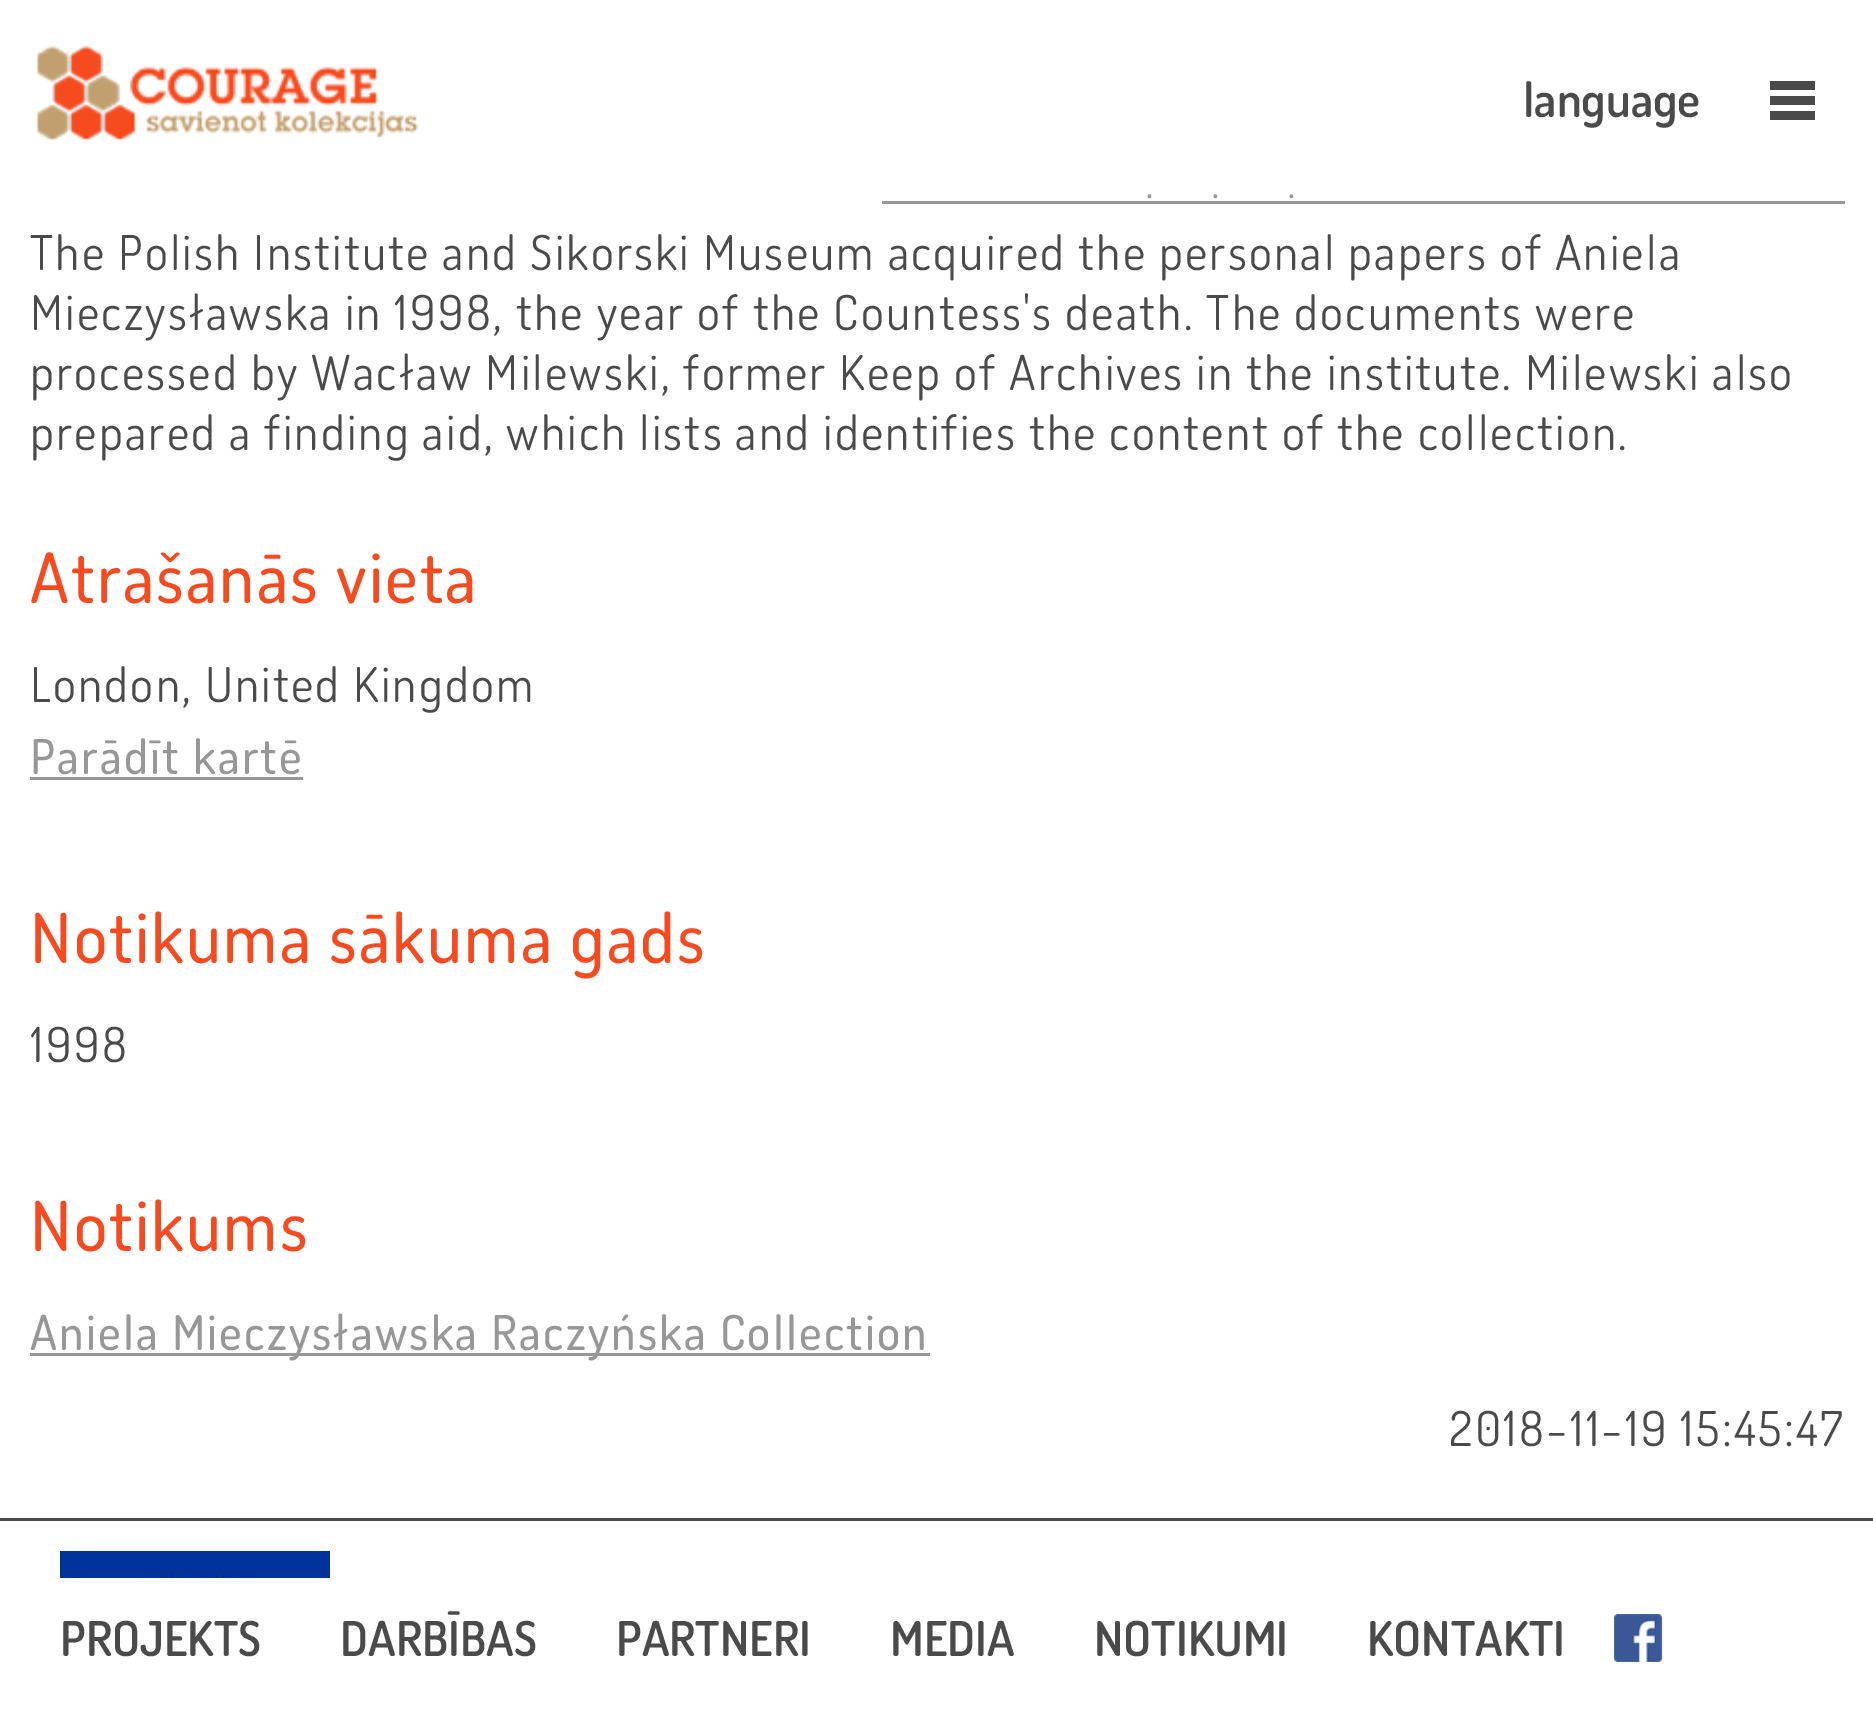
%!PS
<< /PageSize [1873 1715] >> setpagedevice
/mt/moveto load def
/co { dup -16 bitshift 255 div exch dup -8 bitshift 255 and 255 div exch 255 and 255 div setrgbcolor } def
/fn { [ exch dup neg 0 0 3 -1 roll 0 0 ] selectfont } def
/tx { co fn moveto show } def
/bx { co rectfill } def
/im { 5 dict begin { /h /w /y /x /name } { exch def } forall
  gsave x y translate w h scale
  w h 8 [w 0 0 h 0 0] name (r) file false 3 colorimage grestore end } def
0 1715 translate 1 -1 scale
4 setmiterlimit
0 0 1873 1715 16#FFFFFF bx
(media/1.raw) 35 45 384 96 im
1770 81 45 9 16#4B4A4A bx
1770 111 45 9 16#4B4A4A bx
1770 96 45 9 16#4B4A4A bx
882 201 963 3 16#979797 bx
30 777 273 3 16#979797 bx
30 1353 900 3 16#979797 bx
0 1518 1873 3 16#4B4A4A bx
(media/2.raw) 60 1551 270 27 im
(media/3.raw) 1614 1614 49 48 im
(language) 1523 117 /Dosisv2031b-SemiBold 48 16#4B4A4A tx
/Dosisv2031b-Medium 38 fn
16#979797 co
1146 198 mt 2.25 0 (.) ashow
1212 198 mt 2.25 0 (.) ashow
1288 198 mt 2.25 0 (.) ashow
/Dosisv2031b-Regular 48 fn
16#4B4A4A co
30 270 mt 2.25 0 (The Polish Institute and Sikorski Museum acquired the personal papers of Aniela) ashow
30 330 mt 2.25 0 (Mieczysławska in 1998, the year of the Countess's death. The documents were) ashow
30 390 mt 2.25 0 (processed by Wacław Milewski, former Keep of Archives in the institute. Milewski also) ashow
30 450 mt 2.25 0 (prepared a finding aid, which lists and identifies the content of the collection.) ashow
/Dosisv2031b-Medium 69 fn
16#F74A1F co
30 603 mt 2.25 0 (Atrašanās vieta) ashow
/Dosisv2031b-Regular 48 fn
16#4B4A4A co
30 702 mt 2.25 0 (London, United Kingdom) ashow
/Dosisv2031b-Medium 48 fn
16#979797 co
30 774 mt 2.25 0 (Parādīt kartē) ashow
/Dosisv2031b-Medium 69 fn
16#F74A1F co
30 963 mt 2.25 0 (Notikuma sākuma gads) ashow
/Dosisv2031b-Regular 48 fn
16#4B4A4A co
30 1062 mt 2.25 0 (1998) ashow
/Dosisv2031b-Medium 69 fn
16#F74A1F co
30 1251 mt 2.25 0 (Notikums) ashow
/Dosisv2031b-Medium 48 fn
16#979797 co
30 1350 mt 2.25 0 (Aniela Mieczysławska Raczyńska Collection) ashow
/Dosisv2031b-Regular 48 fn
16#4B4A4A co
1449 1446 mt 2.25 0 (2018-11-19 15:45:47) ashow
(PROJEKTS) 60 1656 /Dosisv2031b-SemiBold 48 16#4B4A4A tx
(DARBĪBAS) 340 1656 /Dosisv2031b-SemiBold 48 16#4B4A4A tx
(PARTNERI) 616 1656 /Dosisv2031b-SemiBold 48 16#4B4A4A tx
(MEDIA) 890 1656 /Dosisv2031b-SemiBold 48 16#4B4A4A tx
(NOTIKUMI) 1094 1656 /Dosisv2031b-SemiBold 48 16#4B4A4A tx
(KONTAKTI) 1367 1656 /Dosisv2031b-SemiBold 48 16#4B4A4A tx
showpage
